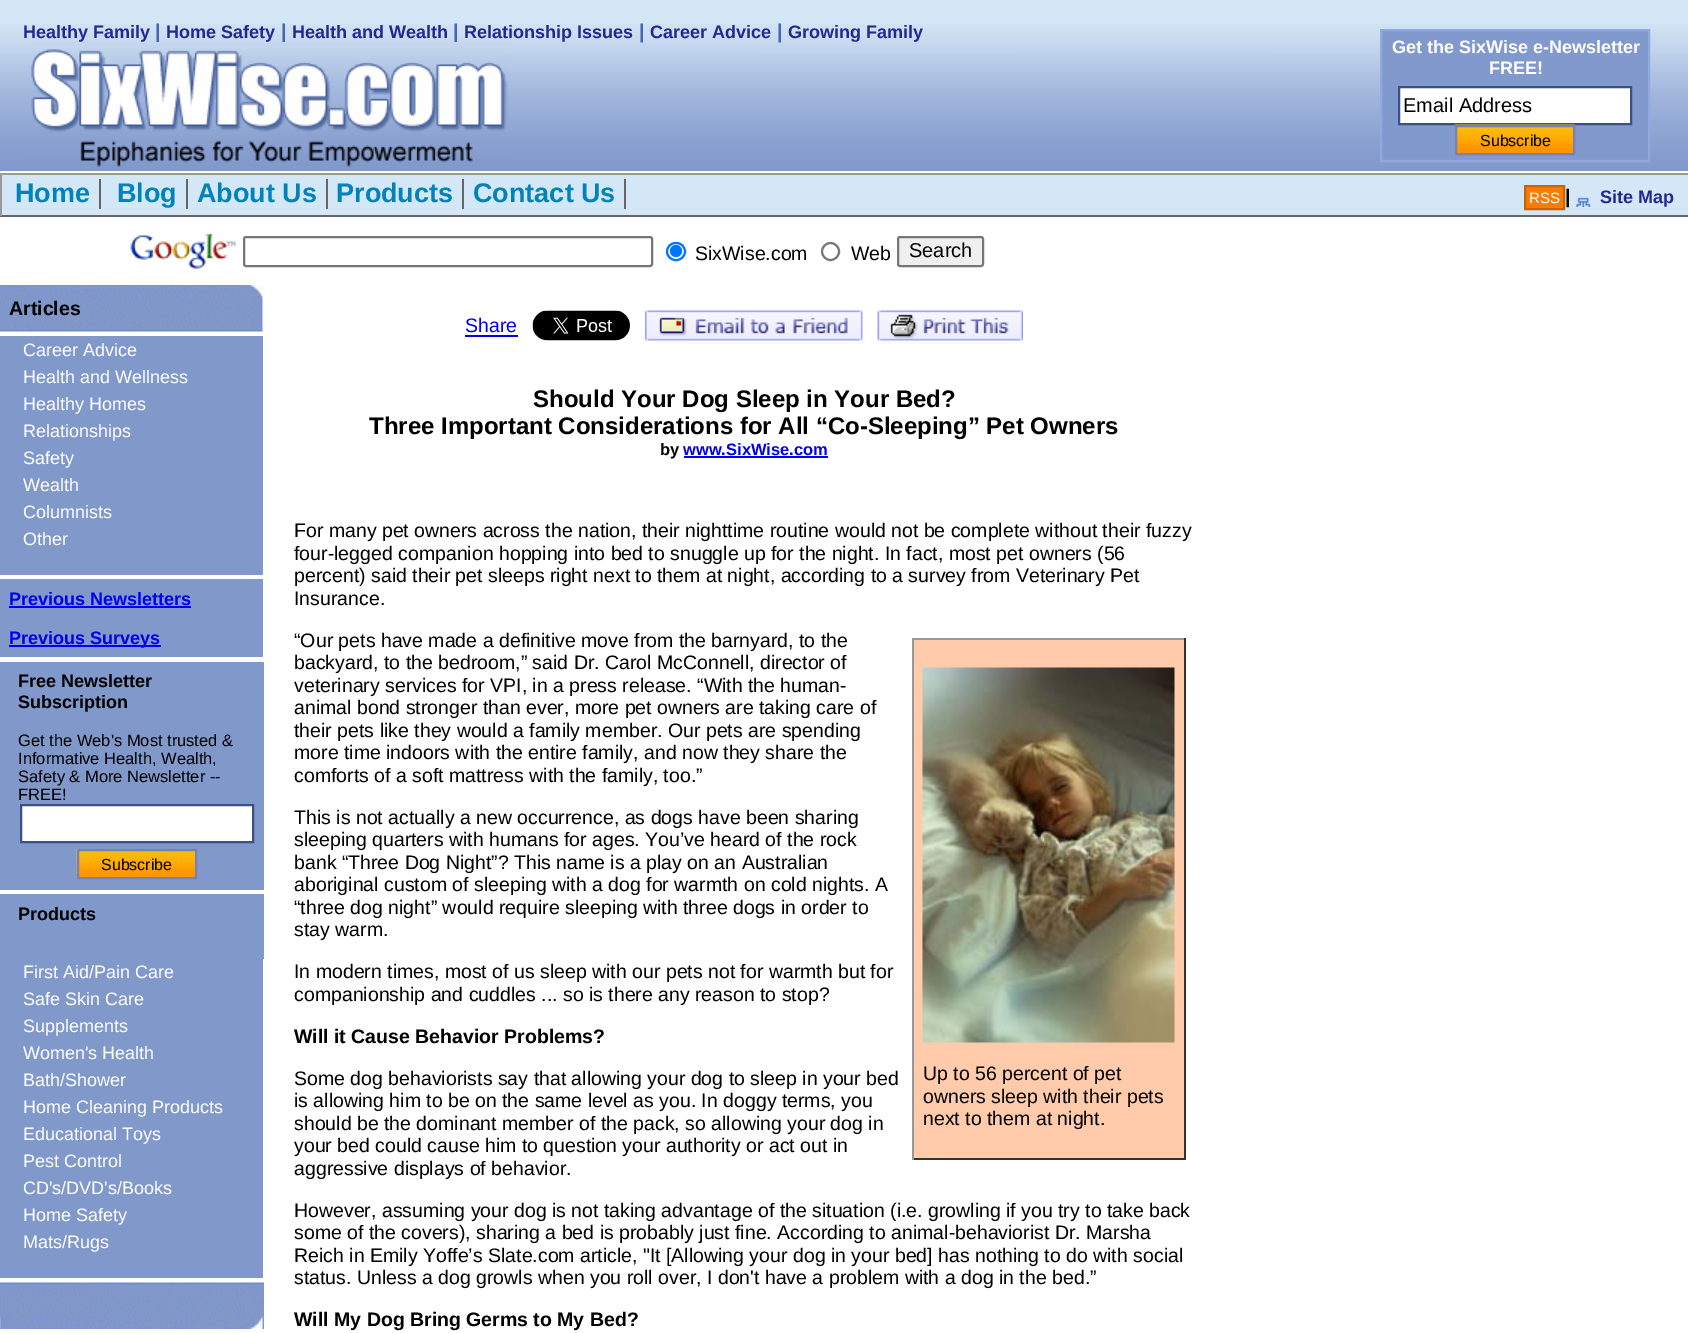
%!PS
<< /PageSize [1688 1333] >> setpagedevice
/mt/moveto load def
/li/lineto load def
/cp/closepath load def
/fl/fill load def
/st/stroke load def
/gs/gsave load def
/gr/grestore load def
/lw/setlinewidth load def
/co { dup -16 bitshift 255 div exch dup -8 bitshift 255 and 255 div exch 255 and 255 div setrgbcolor } def
/fn { [ exch dup neg 0 0 3 -1 roll 0 0 ] selectfont } def
/tx { co fn moveto show } def
/bx { co rectfill } def
/ci { newpath 0 360 arc closepath } def
/rr { 5 dict begin { /r /h /w /y /x } { exch def } forall
  x r add y moveto x w add y 2 copy h add r arct x w add y h add x 1 index r arct
  x y h add x y r arct x y 2 copy exch w add exch r arct closepath end } def
/im { 5 dict begin { /h /w /y /x /name } { exch def } forall
  gsave x y translate w h scale
  w h 8 [w 0 0 h 0 0] name (r) file false 3 colorimage grestore end } def
0 1333 translate 1 -1 scale
4 setmiterlimit
0 0 1688 1333 16#FFFFFF bx
0 0 1688 24 16#D3E7F6 bx
(media/1.raw) 0 24 1688 147 im
1382 31 266 128 16#8299CD bx
16#91AADE co
2 lw
1381 30 268 131 rectstroke
16#FFFFFF co
1399 87 mt 1631 87 li 1631 124 li 1399 124 li cp gs fl gr
16#3B5083 co
st
(media/3.raw) 1455 124 120 29 im
16#7582BA co
1456 126 118 28 rectstroke
2 175 1686 40 16#D4E7F6 bx
0 173 1688 2 16#999999 bx
0 215 1688 2 16#666666 bx
0 173 2 43 16#999999 bx
99 179 2 30 16#666666 bx
186 179 2 30 16#666666 bx
326 179 2 30 16#666666 bx
462 179 2 30 16#666666 bx
624 179 2 30 16#666666 bx
16#FB7C00 co
1525 186 mt 1564 186 li 1564 209 li 1525 209 li cp gs fl gr
16#CA6401 co
st
(media/4.raw) 1576 197 15 10 im
(media/5.raw) 130 233 106 36 im
16#767676 co
244 237 408 29 2 rr st
16#0075FF co
667 243 18 17 8.5 rr st
676 251 6 ci fl
16#767676 co
830.5 251.5 8.5 ci st
16#EFEFEF co
898 237 85 29 2 rr gs fl gr
16#767676 co
st
(media/6.raw) 0 285 263 47 im
0 336 263 239 16#8198CA bx
0 579 263 78 16#8198CA bx
9 606 182 2 16#0000EE bx
9 645 152 2 16#0000EE bx
0 662 264 228 16#8198CA bx
16#FFFFFF co
21 805 mt 253 805 li 253 842 li 21 842 li cp gs fl gr
16#3B5083 co
st
(media/7.raw) 76 849 119 29 im
16#7582BA co
78 850 118 28 rectstroke
0 894 264 65 16#8198CA bx
0 959 263 319 16#8198CA bx
(media/8.raw) 0 1282 264 47 im
465 335 53 2 16#0000EE bx
(media/9.raw) 532 310 98 31 im
(media/10.raw) 645 310 218 31 im
(media/11.raw) 877 310 146 31 im
684 456 144 2 16#0000EE bx
914 640 270 518 16#FFCBAA bx
912 638 273 2 16#999999 bx
1184 638 2 522 16#333333 bx
912 1158 273 2 16#333333 bx
912 638 2 522 16#999999 bx
(media/12.raw) 922 667 253 376 im
(Healthy Family) 23 38 /LiberationSans-Bold 18 16#222791 tx
(|) 155 38 /LiberationSans-Bold 20 16#4465AF tx
(Home Safety) 166 38 /LiberationSans-Bold 18 16#222791 tx
(|) 281 38 /LiberationSans-Bold 20 16#4465AF tx
(Health and Wealth) 292 38 /LiberationSans-Bold 18 16#222791 tx
(|) 453 38 /LiberationSans-Bold 20 16#4465AF tx
(Relationship Issues) 464 38 /LiberationSans-Bold 18 16#222791 tx
(|) 639 38 /LiberationSans-Bold 20 16#4465AF tx
(Career Advice) 650 38 /LiberationSans-Bold 18 16#222791 tx
(|) 777 38 /LiberationSans-Bold 20 16#4465AF tx
(Growing Family) 788 38 /LiberationSans-Bold 18 16#222791 tx
(media/2.raw) 31 42 477 125 im
(Get the SixWise e-Newsletter) 1392 53 /LiberationSans-Bold 18 16#FFFFFF tx
(FREE!) 1489 74 /LiberationSans-Bold 18 16#FFFFFF tx
(Email Address) 1403 112 /LiberationSans-Regular 20 16#000000 tx
(Subscribe) 1480 146 /LiberationSans-Regular 16 16#000000 tx
(Home) 15 202 /LiberationSans-Bold 27 16#0083BB tx
(Blog) 117 202 /LiberationSans-Bold 27 16#0083BB tx
(About Us) 197 202 /LiberationSans-Bold 27 16#0083BB tx
(Products) 336 202 /LiberationSans-Bold 27 16#0083BB tx
(Contact Us) 473 202 /LiberationSans-Bold 27 16#0083BB tx
(RSS) 1529 203 /LiberationSans-Regular 15 16#FFFFFF tx
(|) 1565 203 /LiberationSans-Bold 19.5 16#000000 tx
(Site Map) 1600 203 /LiberationSans-Bold 18 16#222791 tx
(SixWise.com) 695 260 /LiberationSans-Regular 19.5 16#000000 tx
(Web) 851 260 /LiberationSans-Regular 19.5 16#000000 tx
(Search) 909 257 /LiberationSans-Regular 20 16#000000 tx
(Articles) 9 315 /LiberationSans-Bold 19.5 16#000000 tx
(Career Advice) 23 356 /LiberationSans-Regular 18 16#FFFFFF tx
(Health and Wellness) 23 383 /LiberationSans-Regular 18 16#FFFFFF tx
(Healthy Homes) 23 410 /LiberationSans-Regular 18 16#FFFFFF tx
(Relationships) 23 437 /LiberationSans-Regular 18 16#FFFFFF tx
(Safety) 23 464 /LiberationSans-Regular 18 16#FFFFFF tx
(Wealth) 23 491 /LiberationSans-Regular 18 16#FFFFFF tx
(Columnists) 23 518 /LiberationSans-Regular 18 16#FFFFFF tx
(Other) 23 545 /LiberationSans-Regular 18 16#FFFFFF tx
(Previous Newsletters) 9 605 /LiberationSans-Bold 18 16#0000EE tx
(Previous Surveys) 9 644 /LiberationSans-Bold 18 16#0000EE tx
(Free Newsletter) 18 687 /LiberationSans-Bold 18 16#000000 tx
(Subscription) 18 708 /LiberationSans-Bold 18 16#000000 tx
(Get the Web's Most trusted &) 18 746 /LiberationSans-Regular 16.5 16#000000 tx
(Informative Health, Wealth,) 18 764 /LiberationSans-Regular 16.5 16#000000 tx
(Safety & More Newsletter --) 18 782 /LiberationSans-Regular 16.5 16#000000 tx
(FREE!) 18 800 /LiberationSans-Regular 16.5 16#000000 tx
(Subscribe) 101 870 /LiberationSans-Regular 16 16#000000 tx
(Products) 18 920 /LiberationSans-Bold 18 16#000000 tx
(First Aid/Pain Care) 23 978 /LiberationSans-Regular 18 16#FFFFFF tx
(Safe Skin Care) 23 1005 /LiberationSans-Regular 18 16#FFFFFF tx
(Supplements) 23 1032 /LiberationSans-Regular 18 16#FFFFFF tx
(Women's Health) 23 1059 /LiberationSans-Regular 18 16#FFFFFF tx
(Bath/Shower) 23 1086 /LiberationSans-Regular 18 16#FFFFFF tx
(Home Cleaning Products) 23 1113 /LiberationSans-Regular 18 16#FFFFFF tx
(Educational Toys) 23 1140 /LiberationSans-Regular 18 16#FFFFFF tx
(Pest Control) 23 1167 /LiberationSans-Regular 18 16#FFFFFF tx
(CD's/DVD's/Books) 23 1194 /LiberationSans-Regular 18 16#FFFFFF tx
(Home Safety) 23 1221 /LiberationSans-Regular 18 16#FFFFFF tx
(Mats/Rugs) 23 1248 /LiberationSans-Regular 18 16#FFFFFF tx
(Share) 465 332 /LiberationSans-Regular 19.5 16#0000EE tx
(Should Your Dog Sleep in Your Bed?) 533 407 /LiberationSans-Bold 24 16#000000 tx
(Three Important Considerations for All “Co-Sleeping” Pet Owners) 369 434 /LiberationSans-Bold 24 16#000000 tx
(by) 660 455 /LiberationSans-Bold 16.5 16#000000 tx
(www.SixWise.com) 683 455 /LiberationSans-Bold 16.5 16#0000EE tx
(For many pet owners across the nation, their nighttime routine would not be complete without their fuzzy) 294 537 /LiberationSans-Regular 19.5 16#000000 tx
(four-legged companion hopping into bed to snuggle up for the night. In fact, most pet owners \(56) 294 560 /LiberationSans-Regular 19.5 16#000000 tx
(percent\) said their pet sleeps right next to them at night, according to a survey from Veterinary Pet) 294 582 /LiberationSans-Regular 19.5 16#000000 tx
(Insurance.) 294 605 /LiberationSans-Regular 19.5 16#000000 tx
(“Our pets have made a definitive move from the barnyard, to the) 294 647 /LiberationSans-Regular 19.5 16#000000 tx
(backyard, to the bedroom,” said Dr. Carol McConnell, director of) 294 669 /LiberationSans-Regular 19.5 16#000000 tx
(veterinary services for VPI, in a press release. “With the human-) 294 692 /LiberationSans-Regular 19.5 16#000000 tx
(animal bond stronger than ever, more pet owners are taking care of) 294 714 /LiberationSans-Regular 19.5 16#000000 tx
(their pets like they would a family member. Our pets are spending) 294 737 /LiberationSans-Regular 19.5 16#000000 tx
(more time indoors with the entire family, and now they share the) 294 759 /LiberationSans-Regular 19.5 16#000000 tx
(comforts of a soft mattress with the family, too.”) 294 782 /LiberationSans-Regular 19.5 16#000000 tx
(This is not actually a new occurrence, as dogs have been sharing) 294 824 /LiberationSans-Regular 19.5 16#000000 tx
(sleeping quarters with humans for ages. You’ve heard of the rock) 294 846 /LiberationSans-Regular 19.5 16#000000 tx
(bank “Three Dog Night”? This name is a play on an Australian) 294 869 /LiberationSans-Regular 19.5 16#000000 tx
(aboriginal custom of sleeping with a dog for warmth on cold nights. A) 294 891 /LiberationSans-Regular 19.5 16#000000 tx
(“three dog night” would require sleeping with three dogs in order to) 294 914 /LiberationSans-Regular 19.5 16#000000 tx
(stay warm.) 294 936 /LiberationSans-Regular 19.5 16#000000 tx
(In modern times, most of us sleep with our pets not for warmth but for) 294 978 /LiberationSans-Regular 19.5 16#000000 tx
(companionship and cuddles ... so is there any reason to stop?) 294 1001 /LiberationSans-Regular 19.5 16#000000 tx
(Will it Cause Behavior Problems?) 294 1043 /LiberationSans-Bold 19.5 16#000000 tx
(Some dog behaviorists say that allowing your dog to sleep in your bed) 294 1085 /LiberationSans-Regular 19.5 16#000000 tx
(is allowing him to be on the same level as you. In doggy terms, you) 294 1107 /LiberationSans-Regular 19.5 16#000000 tx
(should be the dominant member of the pack, so allowing your dog in) 294 1130 /LiberationSans-Regular 19.5 16#000000 tx
(your bed could cause him to question your authority or act out in) 294 1152 /LiberationSans-Regular 19.5 16#000000 tx
(aggressive displays of behavior.) 294 1175 /LiberationSans-Regular 19.5 16#000000 tx
(Up to 56 percent of pet) 923 1080 /LiberationSans-Regular 19.5 16#000000 tx
(owners sleep with their pets) 923 1103 /LiberationSans-Regular 19.5 16#000000 tx
(next to them at night.) 923 1125 /LiberationSans-Regular 19.5 16#000000 tx
(However, assuming your dog is not taking advantage of the situation \(i.e. growling if you try to take back) 294 1217 /LiberationSans-Regular 19.5 16#000000 tx
(some of the covers\), sharing a bed is probably just fine. According to animal-behaviorist Dr. Marsha) 294 1239 /LiberationSans-Regular 19.5 16#000000 tx
(Reich in Emily Yoffe’s Slate.com article, "It [Allowing your dog in your bed] has nothing to do with social) 294 1262 /LiberationSans-Regular 19.5 16#000000 tx
(status. Unless a dog growls when you roll over, I don't have a problem with a dog in the bed.”) 294 1284 /LiberationSans-Regular 19.5 16#000000 tx
(Will My Dog Bring Germs to My Bed?) 294 1326 /LiberationSans-Bold 19.5 16#000000 tx
showpage
